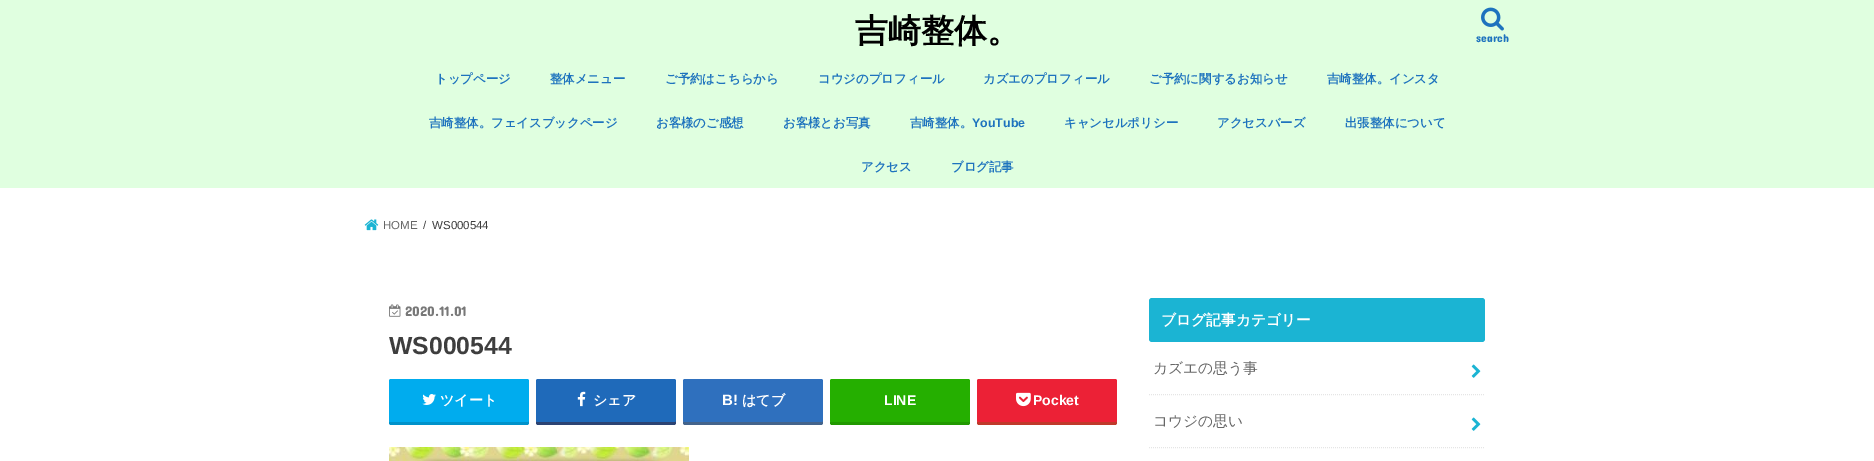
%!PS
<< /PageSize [1874 461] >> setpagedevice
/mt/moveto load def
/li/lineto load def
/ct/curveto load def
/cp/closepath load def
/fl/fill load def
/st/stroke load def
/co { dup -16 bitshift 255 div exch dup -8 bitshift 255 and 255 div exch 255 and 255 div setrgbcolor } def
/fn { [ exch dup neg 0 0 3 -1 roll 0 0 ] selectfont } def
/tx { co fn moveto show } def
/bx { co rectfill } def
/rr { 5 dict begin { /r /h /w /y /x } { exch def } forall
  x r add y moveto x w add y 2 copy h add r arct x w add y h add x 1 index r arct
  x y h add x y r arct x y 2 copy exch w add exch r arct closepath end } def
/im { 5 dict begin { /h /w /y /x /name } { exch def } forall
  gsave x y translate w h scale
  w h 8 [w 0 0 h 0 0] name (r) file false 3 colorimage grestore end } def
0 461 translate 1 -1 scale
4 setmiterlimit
0 0 1874 461 16#FFFFFF bx
0 0 1874 188 16#E0FFE0 bx
(media/1.raw) 1481 7 23 24 im
(media/2.raw) 364 219 15 12 im
(media/3.raw) 389 304 12 13 im
16#0092CA co
389 420 mt 389 423 li 389 424 390 425 391 425 ct 527 425 li 528 425 529 424 529 423 ct 529 420 li 529 421 528 422 527 422 ct 391 422 li 389 421 li cp fl
16#00ACEE co
389 379 140 43 2 rr fl
(media/4.raw) 422 394 14 11 im
16#2C4373 co
536 420 mt 536 423 li 536 424 537 425 538 425 ct 674 425 li 675 425 676 424 676 423 ct 676 420 li 676 421 675 422 674 422 ct 538 422 li 536 421 li cp fl
16#1F6ABA co
536 379 140 43 2 rr fl
(media/5.raw) 577 391 9 16 im
16#43638B co
683 420 mt 683 423 li 683 424 684 425 685 425 ct 821 425 li 822 425 823 424 823 423 ct 823 420 li 823 421 822 422 821 422 ct 685 422 li 683 421 li cp fl
16#2F70BE co
683 379 140 43 2 rr fl
16#219900 co
830 420 mt 830 423 li 830 424 831 425 832 425 ct 968 425 li 969 425 970 424 970 423 ct 970 420 li 970 421 969 422 968 422 ct 832 422 li 830 421 li cp fl
16#25AF00 co
830 379 140 43 2 rr fl
16#C0392B co
977 420 mt 977 423 li 977 424 978 425 979 425 ct 1115 425 li 1116 425 1117 424 1117 423 ct 1117 420 li 1117 421 1116 422 1115 422 ct 979 422 li 977 421 li cp fl
16#EC2136 co
977 379 140 43 2 rr fl
(media/6.raw) 1016 392 15 15 im
(media/7.raw) 389 447 300 14 im
16#1BB4D3 co
1149 298 336 44 3 rr fl
16#E5E5E5 co
[1 1] 0 setdash
1149 394.5 mt 1485 394.5 li st
(media/8.raw) 1471 364 10 14 im
1149 447.5 mt 1485 447.5 li st
(media/8.raw) 1471 417 10 14 im
(吉崎整体。) 855 42 /WenQuanYiZenHei-Bold 33 16#000000 tx
(search) 1476 42 /ConcertOne-Regular 11.5 16#1E73BE tx
(トップページ) 435 83 /WenQuanYiZenHei-Bold 12.4 16#1E73BE tx
(整体メニュー) 550 83 /WenQuanYiZenHei-Bold 12.4 16#1E73BE tx
(ご予約はこちらから) 665 83 /WenQuanYiZenHei-Bold 12.4 16#1E73BE tx
(コウジのプロフィール) 818 83 /WenQuanYiZenHei-Bold 12.4 16#1E73BE tx
(カズエのプロフィール) 983 83 /WenQuanYiZenHei-Bold 12.4 16#1E73BE tx
(ご予約に関するお知らせ) 1149 83 /WenQuanYiZenHei-Bold 12.4 16#1E73BE tx
(吉崎整体。インスタ) 1327 83 /WenQuanYiZenHei-Bold 12.4 16#1E73BE tx
(吉崎整体。フェイスブックページ) 429 127 /WenQuanYiZenHei-Bold 12.4 16#1E73BE tx
(お客様のご感想) 656 127 /WenQuanYiZenHei-Bold 12.4 16#1E73BE tx
(お客様とお写真) 783 127 /WenQuanYiZenHei-Bold 12.4 16#1E73BE tx
(吉崎整体。) 910 127 /WenQuanYiZenHei-Bold 12.4 16#1E73BE tx
(YouTube) 972 127 /LiberationSans-Bold 12.4 16#1E73BE tx
(キャンセルポリシー) 1064 127 /WenQuanYiZenHei-Bold 12.4 16#1E73BE tx
(アクセスバーズ) 1217 127 /WenQuanYiZenHei-Bold 12.4 16#1E73BE tx
(出張整体について) 1345 127 /WenQuanYiZenHei-Bold 12.4 16#1E73BE tx
(アクセス) 861 171 /WenQuanYiZenHei-Bold 12.4 16#1E73BE tx
(ブログ記事) 951 171 /WenQuanYiZenHei-Bold 12.4 16#1E73BE tx
(HOME) 383 229 /LiberationSans-Regular 11.5 16#666666 tx
(/) 423 229 /LiberationSans-Regular 11.5 16#3E3E3E tx
(WS000544) 432 229 /LiberationSans-Regular 11.5 16#3E3E3E tx
(2020.11.01) 405 316 /ConcertOne-Regular 14 16#787878 tx
(WS000544) 389 354 /LiberationSans-Bold 24.75 16#3E3E3E tx
(ツイート) 440 405 /WenQuanYiZenHei-Bold 14 16#FFFFFF tx
(シェア) 593 405 /WenQuanYiZenHei-Bold 14 16#FFFFFF tx
(B!) 722 405 /LiberationSans-Bold 15 16#FFFFFF tx
(はてブ) 742 405 /WenQuanYiZenHei-Bold 14 16#FFFFFF tx
(LINE) 884 405 /LiberationSans-Bold 14 16#FFFFFF tx
(Pocket) 1033 405 /LiberationSans-Bold 14 16#FFFFFF tx
(ブログ記事カテゴリー) 1161 325 /WenQuanYiZenHei-Bold 14.75 16#FFFFFF tx
(カズエの思う事) 1153 373 /WenQuanYiZenHei-Medium 14.75 16#666666 tx
(コウジの思い) 1153 426 /WenQuanYiZenHei-Medium 14.75 16#666666 tx
showpage
